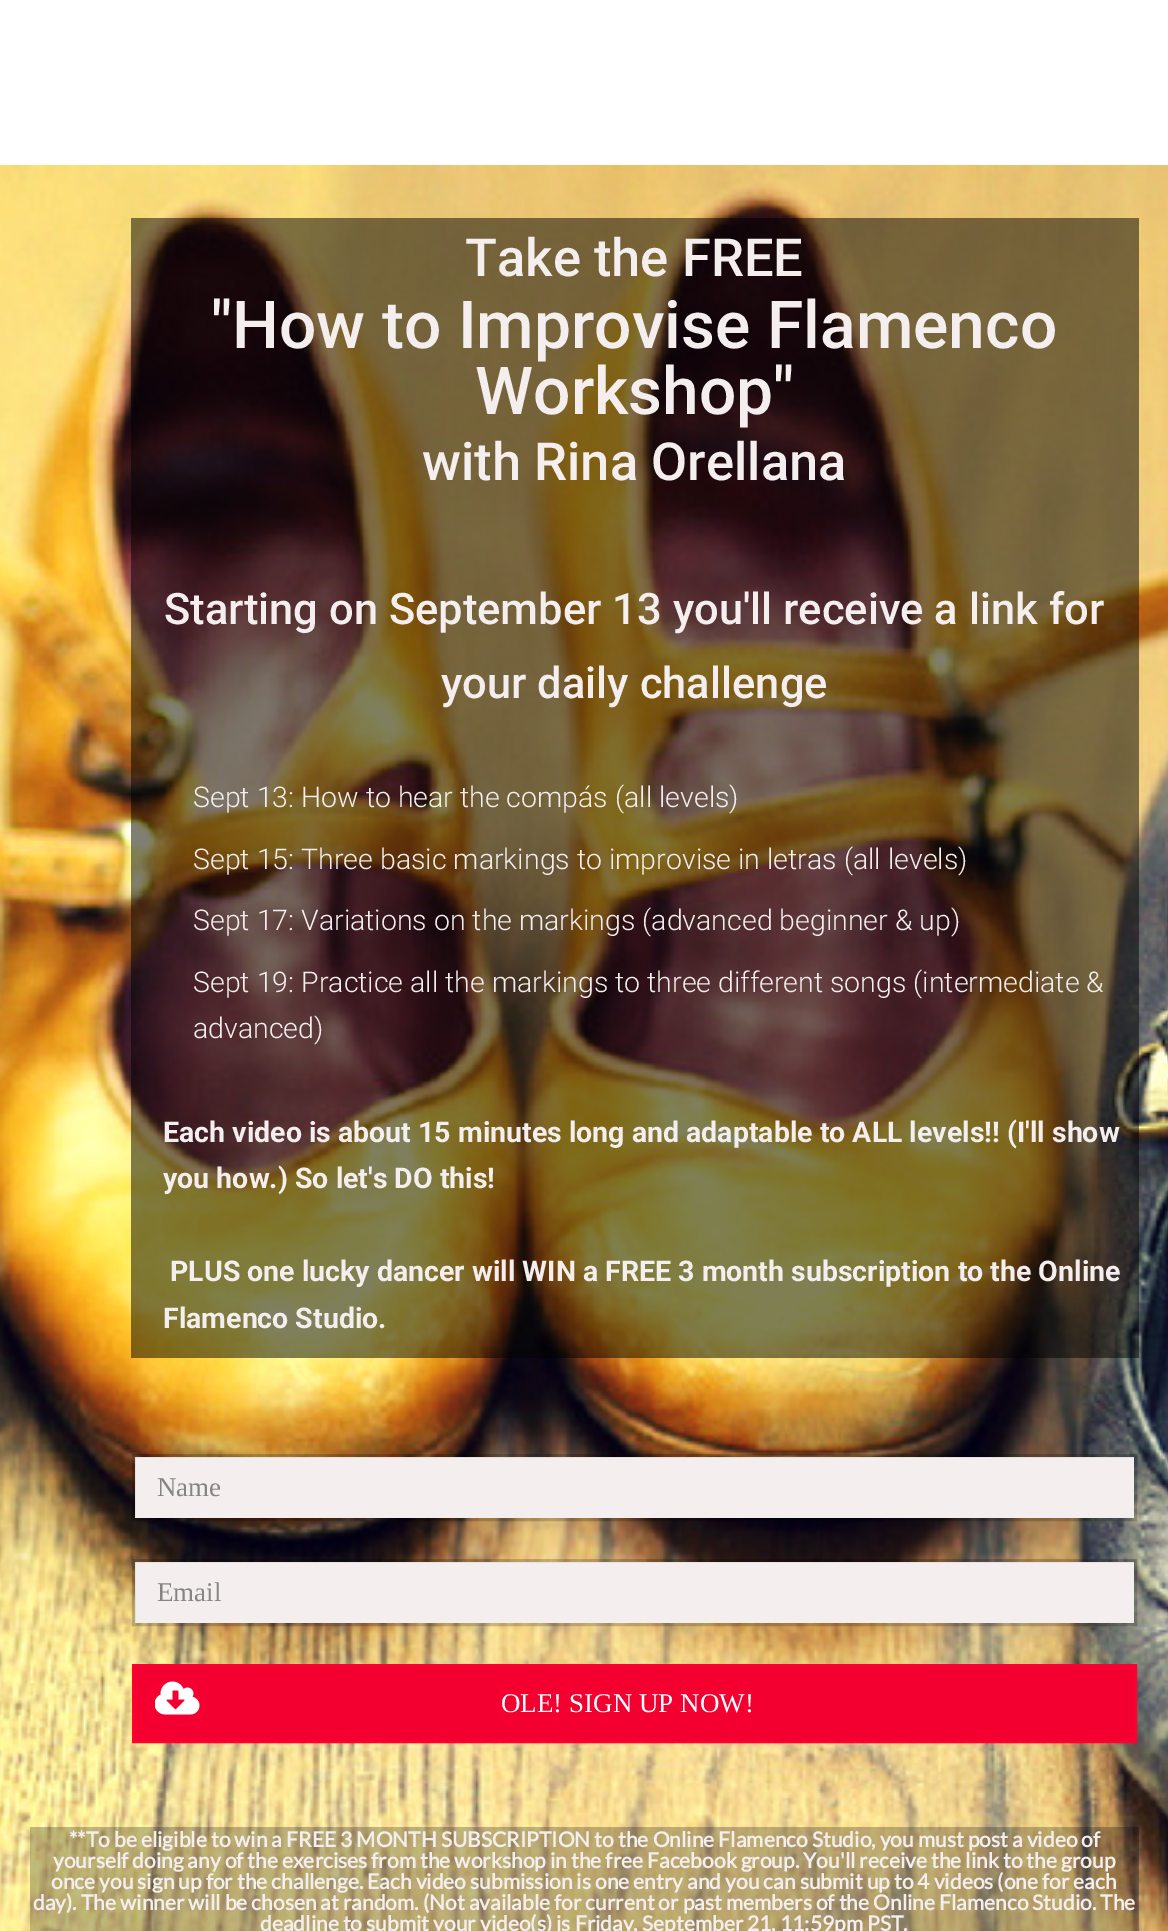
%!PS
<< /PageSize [1168 1931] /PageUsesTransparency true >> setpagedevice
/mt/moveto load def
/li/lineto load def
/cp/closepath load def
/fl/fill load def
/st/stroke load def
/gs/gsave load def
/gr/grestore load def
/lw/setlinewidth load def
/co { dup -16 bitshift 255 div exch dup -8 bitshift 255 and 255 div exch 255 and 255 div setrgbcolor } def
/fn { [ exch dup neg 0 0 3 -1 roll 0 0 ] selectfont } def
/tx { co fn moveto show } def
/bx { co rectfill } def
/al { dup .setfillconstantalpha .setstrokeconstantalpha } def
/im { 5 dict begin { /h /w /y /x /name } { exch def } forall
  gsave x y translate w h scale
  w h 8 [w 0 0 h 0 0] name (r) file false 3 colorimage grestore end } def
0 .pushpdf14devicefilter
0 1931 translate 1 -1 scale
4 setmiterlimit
0 0 1168 1931 16#FFFFFF bx
(media/1.raw) 0 165 1168 1766 im
0.5 al
131 218 1008 1140 16#000000 bx
1 al
135 1457 999 61 16#F4EEEE bx
0.2 al
16#000000 co
3 lw
133.5 1455.5 1002 64 rectstroke
1 al
135 1562 999 61 16#F4EEEE bx
0.2 al
16#000000 co
133.5 1560.5 1002 64 rectstroke
1 al
16#F40030 co
133 1665 mt 1136 1665 li 1136 1742 li 133 1742 li cp gs fl gr
16#FF0032 co
2 lw
st
(media/2.raw) 155 1681 45 34 im
0.25 al
30 1827 1109 104 16#000000 bx
1 al
(Take the FREE) 465 276 /Roboto-Medium 52.5 16#F4EEEE tx
("How to Improvise Flamenco) 211 348 /Roboto-Medium 66 16#F4EEEE tx
(Workshop") 475 414 /Roboto-Medium 66 16#F4EEEE tx
(with Rina Orellana) 422 480 /Roboto-Medium 52.5 16#F4EEEE tx
(Starting on September 13 you'll receive a link for) 164 624 /Roboto-Medium 43.5 16#F4EEEE tx
(your daily challenge) 441 698 /Roboto-Medium 43.5 16#F4EEEE tx
(Sept 13: How to hear the compás \(all levels\)) 193 807 /Roboto-Light 28.5 16#F4EEEE tx
(Sept 15: Three basic markings to improvise in letras \(all levels\)) 193 869 /Roboto-Light 28.5 16#F4EEEE tx
(Sept 17: Variations on the markings \(advanced beginner & up\)) 193 930 /Roboto-Light 28.5 16#F4EEEE tx
(Sept 19: Practice all the markings to three different songs \(intermediate &) 193 992 /Roboto-Light 28.5 16#F4EEEE tx
(advanced\)) 193 1038 /Roboto-Light 28.5 16#F4EEEE tx
(Each video is about 15 minutes long and adaptable to ALL levels!! \(I'll show) 163 1142 /Roboto-Bold 28.5 16#F4EEEE tx
(you how.\) So let's DO this!) 163 1188 /Roboto-Bold 28.5 16#F4EEEE tx
(PLUS one lucky dancer will WIN a FREE 3 month subscription to the Online) 170 1281 /Roboto-Bold 28.5 16#F4EEEE tx
(Flamenco Studio.) 163 1328 /Roboto-Bold 28.5 16#F4EEEE tx
(Name) 157 1496 /LiberationSerif-Regular 27 16#858383 tx
(Email) 157 1601 /LiberationSerif-Regular 27 16#858383 tx
(OLE! SIGN UP NOW!) 501 1712 /LiberationSerif-Regular 27 16#FFFFFF tx
(**To be eligible to win a FREE 3 MONTH SUBSCRIPTION to the Online Flamenco Studio, you must post a video of) 69 1847 /Lato-Bold 21 16#F4EEEE tx
(yourself doing any of the exercises from the workshop in the free Facebook group. You'll receive the link to the group) 53 1868 /Lato-Bold 21 16#F4EEEE tx
(once you sign up for the challenge. Each video submission is one entry and you can submit up to 4 videos \(one for each) 51 1889 /Lato-Bold 21 16#F4EEEE tx
(day\). The winner will be chosen at random. \(Not available for current or past members of the Online Flamenco Studio. The) 33 1910 /Lato-Bold 21 16#F4EEEE tx
(deadline to submit your video\(s\) is Friday, September 21, 11:59pm PST.) 260 1931 /Lato-Bold 21 16#F4EEEE tx
.poppdf14devicefilter showpage
